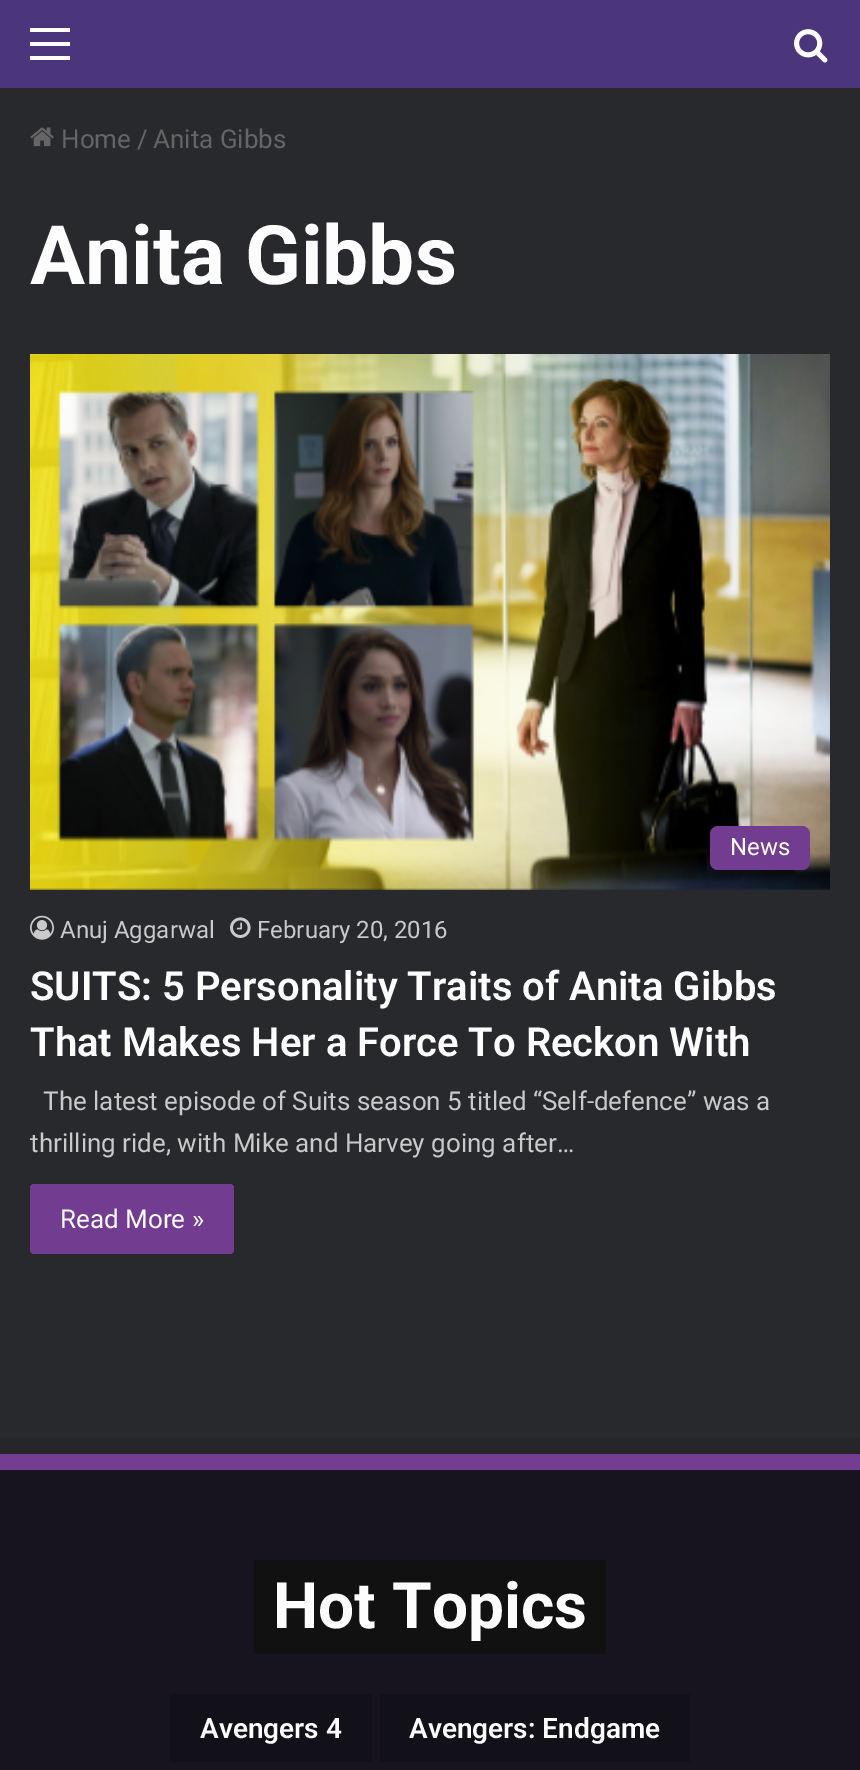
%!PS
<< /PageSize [860 1770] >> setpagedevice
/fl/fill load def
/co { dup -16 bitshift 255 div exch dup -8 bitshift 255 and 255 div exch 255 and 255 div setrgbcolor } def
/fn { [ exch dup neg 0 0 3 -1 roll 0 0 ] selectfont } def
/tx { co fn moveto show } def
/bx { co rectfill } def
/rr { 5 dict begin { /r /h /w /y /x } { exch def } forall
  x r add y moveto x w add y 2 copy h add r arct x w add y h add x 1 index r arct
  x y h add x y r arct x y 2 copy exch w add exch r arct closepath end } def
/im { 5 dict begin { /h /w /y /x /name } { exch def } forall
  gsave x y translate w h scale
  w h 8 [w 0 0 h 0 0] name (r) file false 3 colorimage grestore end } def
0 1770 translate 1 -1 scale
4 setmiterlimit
0 0 860 1770 16#27292D bx
0 0 860 88 16#4B367C bx
30 42 40 4 16#FFFFFF bx
30 28 40 4 16#FFFFFF bx
30 56 40 4 16#FFFFFF bx
(media/1.raw) 794 29 34 34 im
(media/2.raw) 30 127 24 20 im
(media/3.raw) 30 354 800 536 im
16#723D90 co
710 826 100 44 8 rr fl
(media/4.raw) 30 915 24 25 im
(media/5.raw) 230 917 21 21 im
30 1184 204 70 4 rr fl
0 1470 860 300 16#17141F bx
0 1438 860 16 16#24262A bx
0 1454 860 16 16#733D91 bx
254 1560 352 94 16#111111 bx
170 1694 202 68 16#121019 bx
380 1694 310 68 16#121019 bx
(Home) 61 148 /Roboto-Regular 26 16#656565 tx
(/) 137 148 /Roboto-Regular 26 16#656565 tx
(Anita Gibbs) 153 148 /Roboto-Regular 26 16#656565 tx
(Anita Gibbs) 30 284 /Roboto-Bold 82 16#FDFDFD tx
(News) 730 855 /Roboto-Regular 24 16#FDFDFD tx
(Anuj Aggarwal) 60 938 /Roboto-Regular 24 16#CACACA tx
(February 20, 2016) 257 938 /Roboto-Regular 24 16#CACACA tx
(SUITS: 5 Personality Traits of Anita Gibbs) 30 1000 /Roboto-SemiBold 40 16#FDFDFD tx
(That Makes Her a Force To Reckon With) 30 1056 /Roboto-SemiBold 40 16#FDFDFD tx
(The latest episode of Suits season 5 titled “Self-defence” was a) 43 1110 /Roboto-Regular 26 16#CACACA tx
(thrilling ride, with Mike and Harvey going after…) 30 1152 /Roboto-Regular 26 16#CACACA tx
(Read More ») 60 1228 /Roboto-Regular 26 16#FDFDFD tx
(Hot Topics) 273 1628 /Roboto-Bold 64 16#FDFDFD tx
(Avengers 4) 200 1738 /Roboto-SemiBold 28 16#FDFDFD tx
(Avengers: Endgame) 409 1738 /Roboto-SemiBold 28 16#FDFDFD tx
showpage
